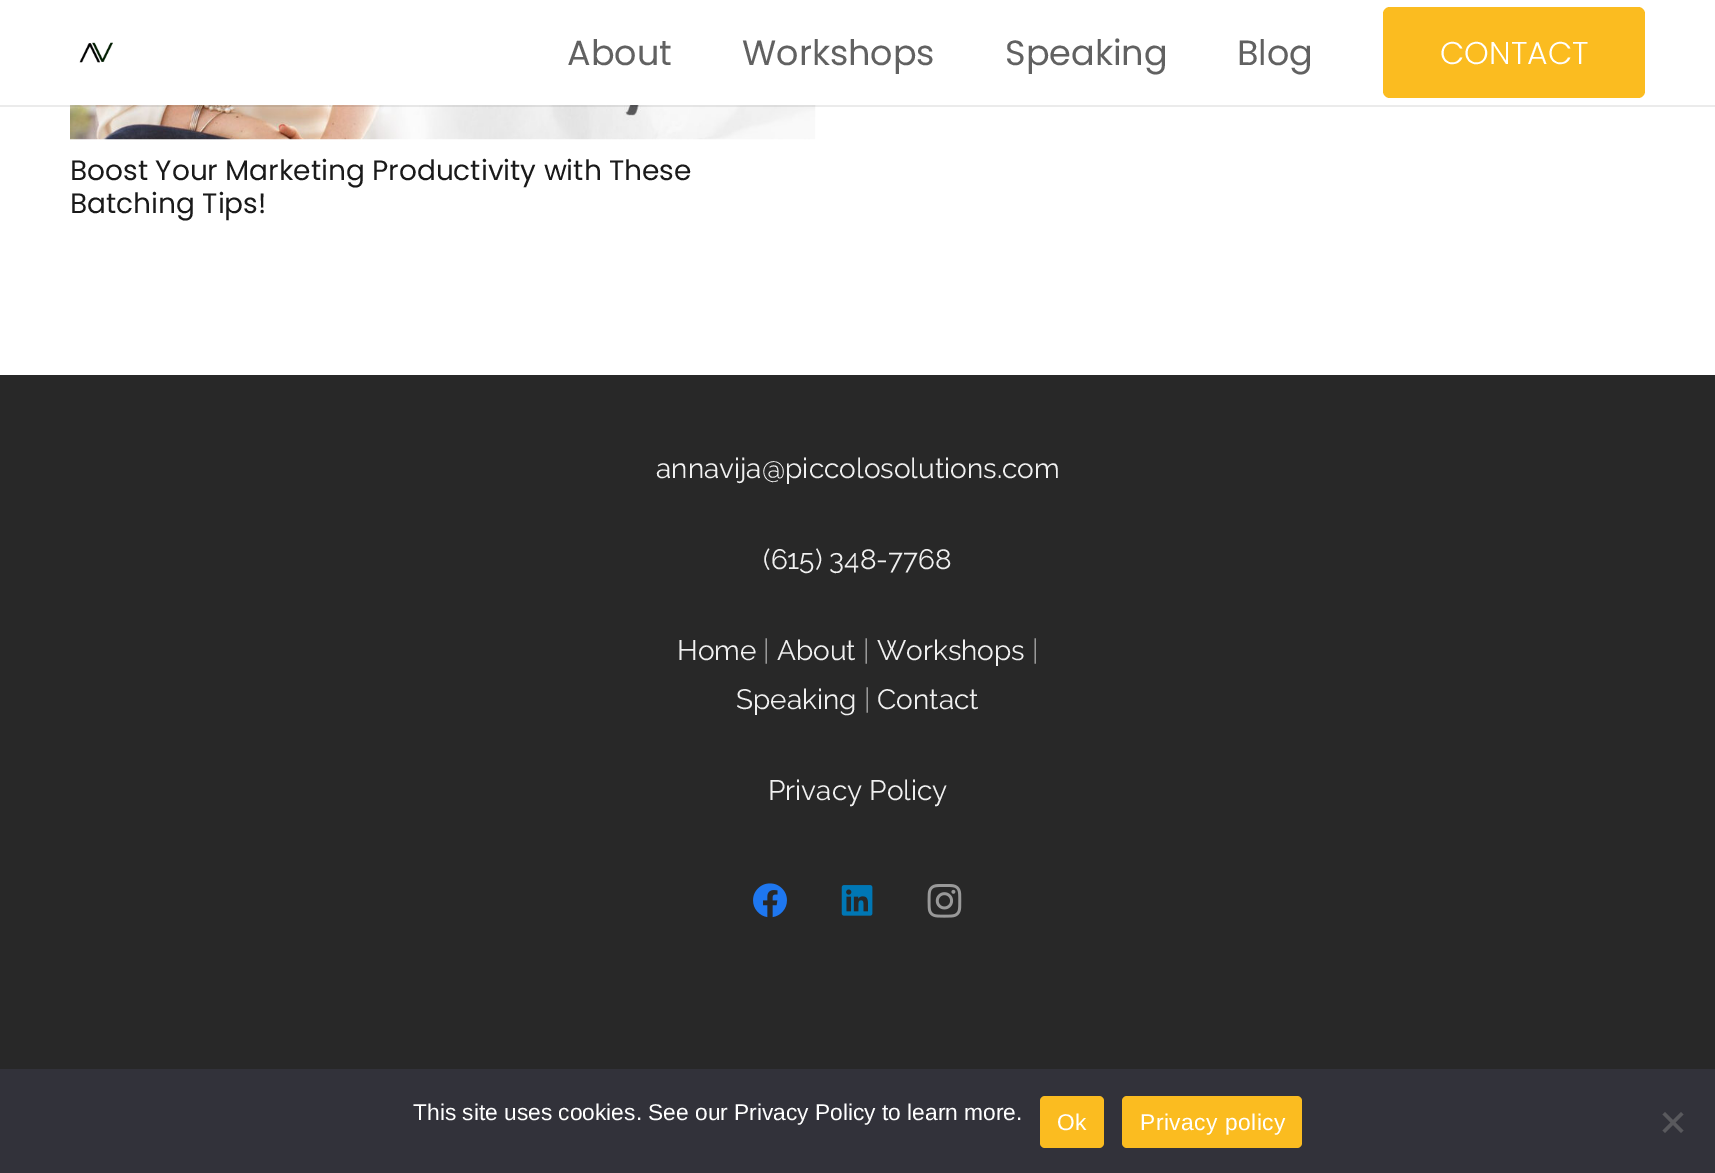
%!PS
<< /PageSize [1715 1173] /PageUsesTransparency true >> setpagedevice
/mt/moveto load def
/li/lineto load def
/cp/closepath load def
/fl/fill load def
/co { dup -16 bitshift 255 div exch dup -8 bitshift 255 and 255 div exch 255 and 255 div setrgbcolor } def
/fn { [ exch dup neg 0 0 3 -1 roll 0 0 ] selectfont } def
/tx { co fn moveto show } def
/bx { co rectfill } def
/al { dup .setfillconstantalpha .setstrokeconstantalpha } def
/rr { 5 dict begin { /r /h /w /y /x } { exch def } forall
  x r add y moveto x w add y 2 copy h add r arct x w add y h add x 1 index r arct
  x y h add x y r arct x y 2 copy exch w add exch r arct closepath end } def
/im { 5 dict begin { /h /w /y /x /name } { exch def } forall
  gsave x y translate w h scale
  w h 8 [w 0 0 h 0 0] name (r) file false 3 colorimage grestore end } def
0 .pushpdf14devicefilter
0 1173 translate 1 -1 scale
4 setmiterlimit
0 0 1715 1173 16#FFFFFF bx
(media/2.raw) 70 105 746 35 im
0.08 al
0 105 1715 2 16#000000 bx
1 al
(media/1.raw) 79 42 34 21 im
16#FBBC20 co
1383 7 262 91 7 rr fl
0 375 1715 694 16#282828 bx
(media/3.raw) 753 883 34 35 im
(media/4.raw) 841 885 32 31 im
(media/5.raw) 927 884 35 34 im
0 1069 1715 104 16#32323A bx
16#FBBC20 co
1040 1096 64 52 5 rr fl
1122 1096 180 52 5 rr fl
16#59595D co
1681 1112 mt 1683.5 1114.5 li 1665 1133 li 1662.5 1130.5 li cp fl
1662.5 1114.5 mt 1665 1112 li 1683.5 1130.5 li 1681 1133 li cp fl
(About) 567 65 /Poppins-Regular 35 16#616161 tx
(Workshops) 742 65 /Poppins-Regular 35 16#616161 tx
(Speaking) 1005 65 /Poppins-Regular 35 16#616161 tx
(Blog) 1237 65 /Poppins-Regular 35 16#616161 tx
(CONTACT) 1440 64 /Poppins-Light 31.5 16#FFFFFF tx
(Boost Your Marketing Productivity with These) 70 180 /Poppins-Regular 28 16#1A1A1A tx
(Batching Tips!) 70 213 /Poppins-Regular 28 16#1A1A1A tx
(annavija@piccolosolutions.com) 656 478 /Raleway-Regular 28 16#F0F0F0 tx
(\(615\) 348-7768) 763 569 /Raleway-Regular 28 16#F0F0F0 tx
(Home) 677 660 /Raleway-Regular 28 16#F0F0F0 tx
(|) 763 660 /Raleway-Regular 28 16#999999 tx
(About) 777 660 /Raleway-Regular 28 16#F0F0F0 tx
(|) 863 660 /Raleway-Regular 28 16#999999 tx
(Workshops) 877 660 /Raleway-Regular 28 16#F0F0F0 tx
(|) 1032 660 /Raleway-Regular 28 16#999999 tx
(Speaking) 736 709 /Raleway-Regular 28 16#F0F0F0 tx
(|) 864 709 /Raleway-Regular 28 16#999999 tx
(Contact) 877 709 /Raleway-Regular 28 16#F0F0F0 tx
(Privacy Policy) 768 800 /Raleway-Regular 28 16#F0F0F0 tx
(This site uses cookies. See our Privacy Policy to learn more.) 413 1120 /LiberationSans-Regular 22.75 16#FFFFFF tx
1057 1130 mt .5 0 (Ok) ashow
1140 1130 mt .5 0 (Privacy policy) ashow
.poppdf14devicefilter showpage
